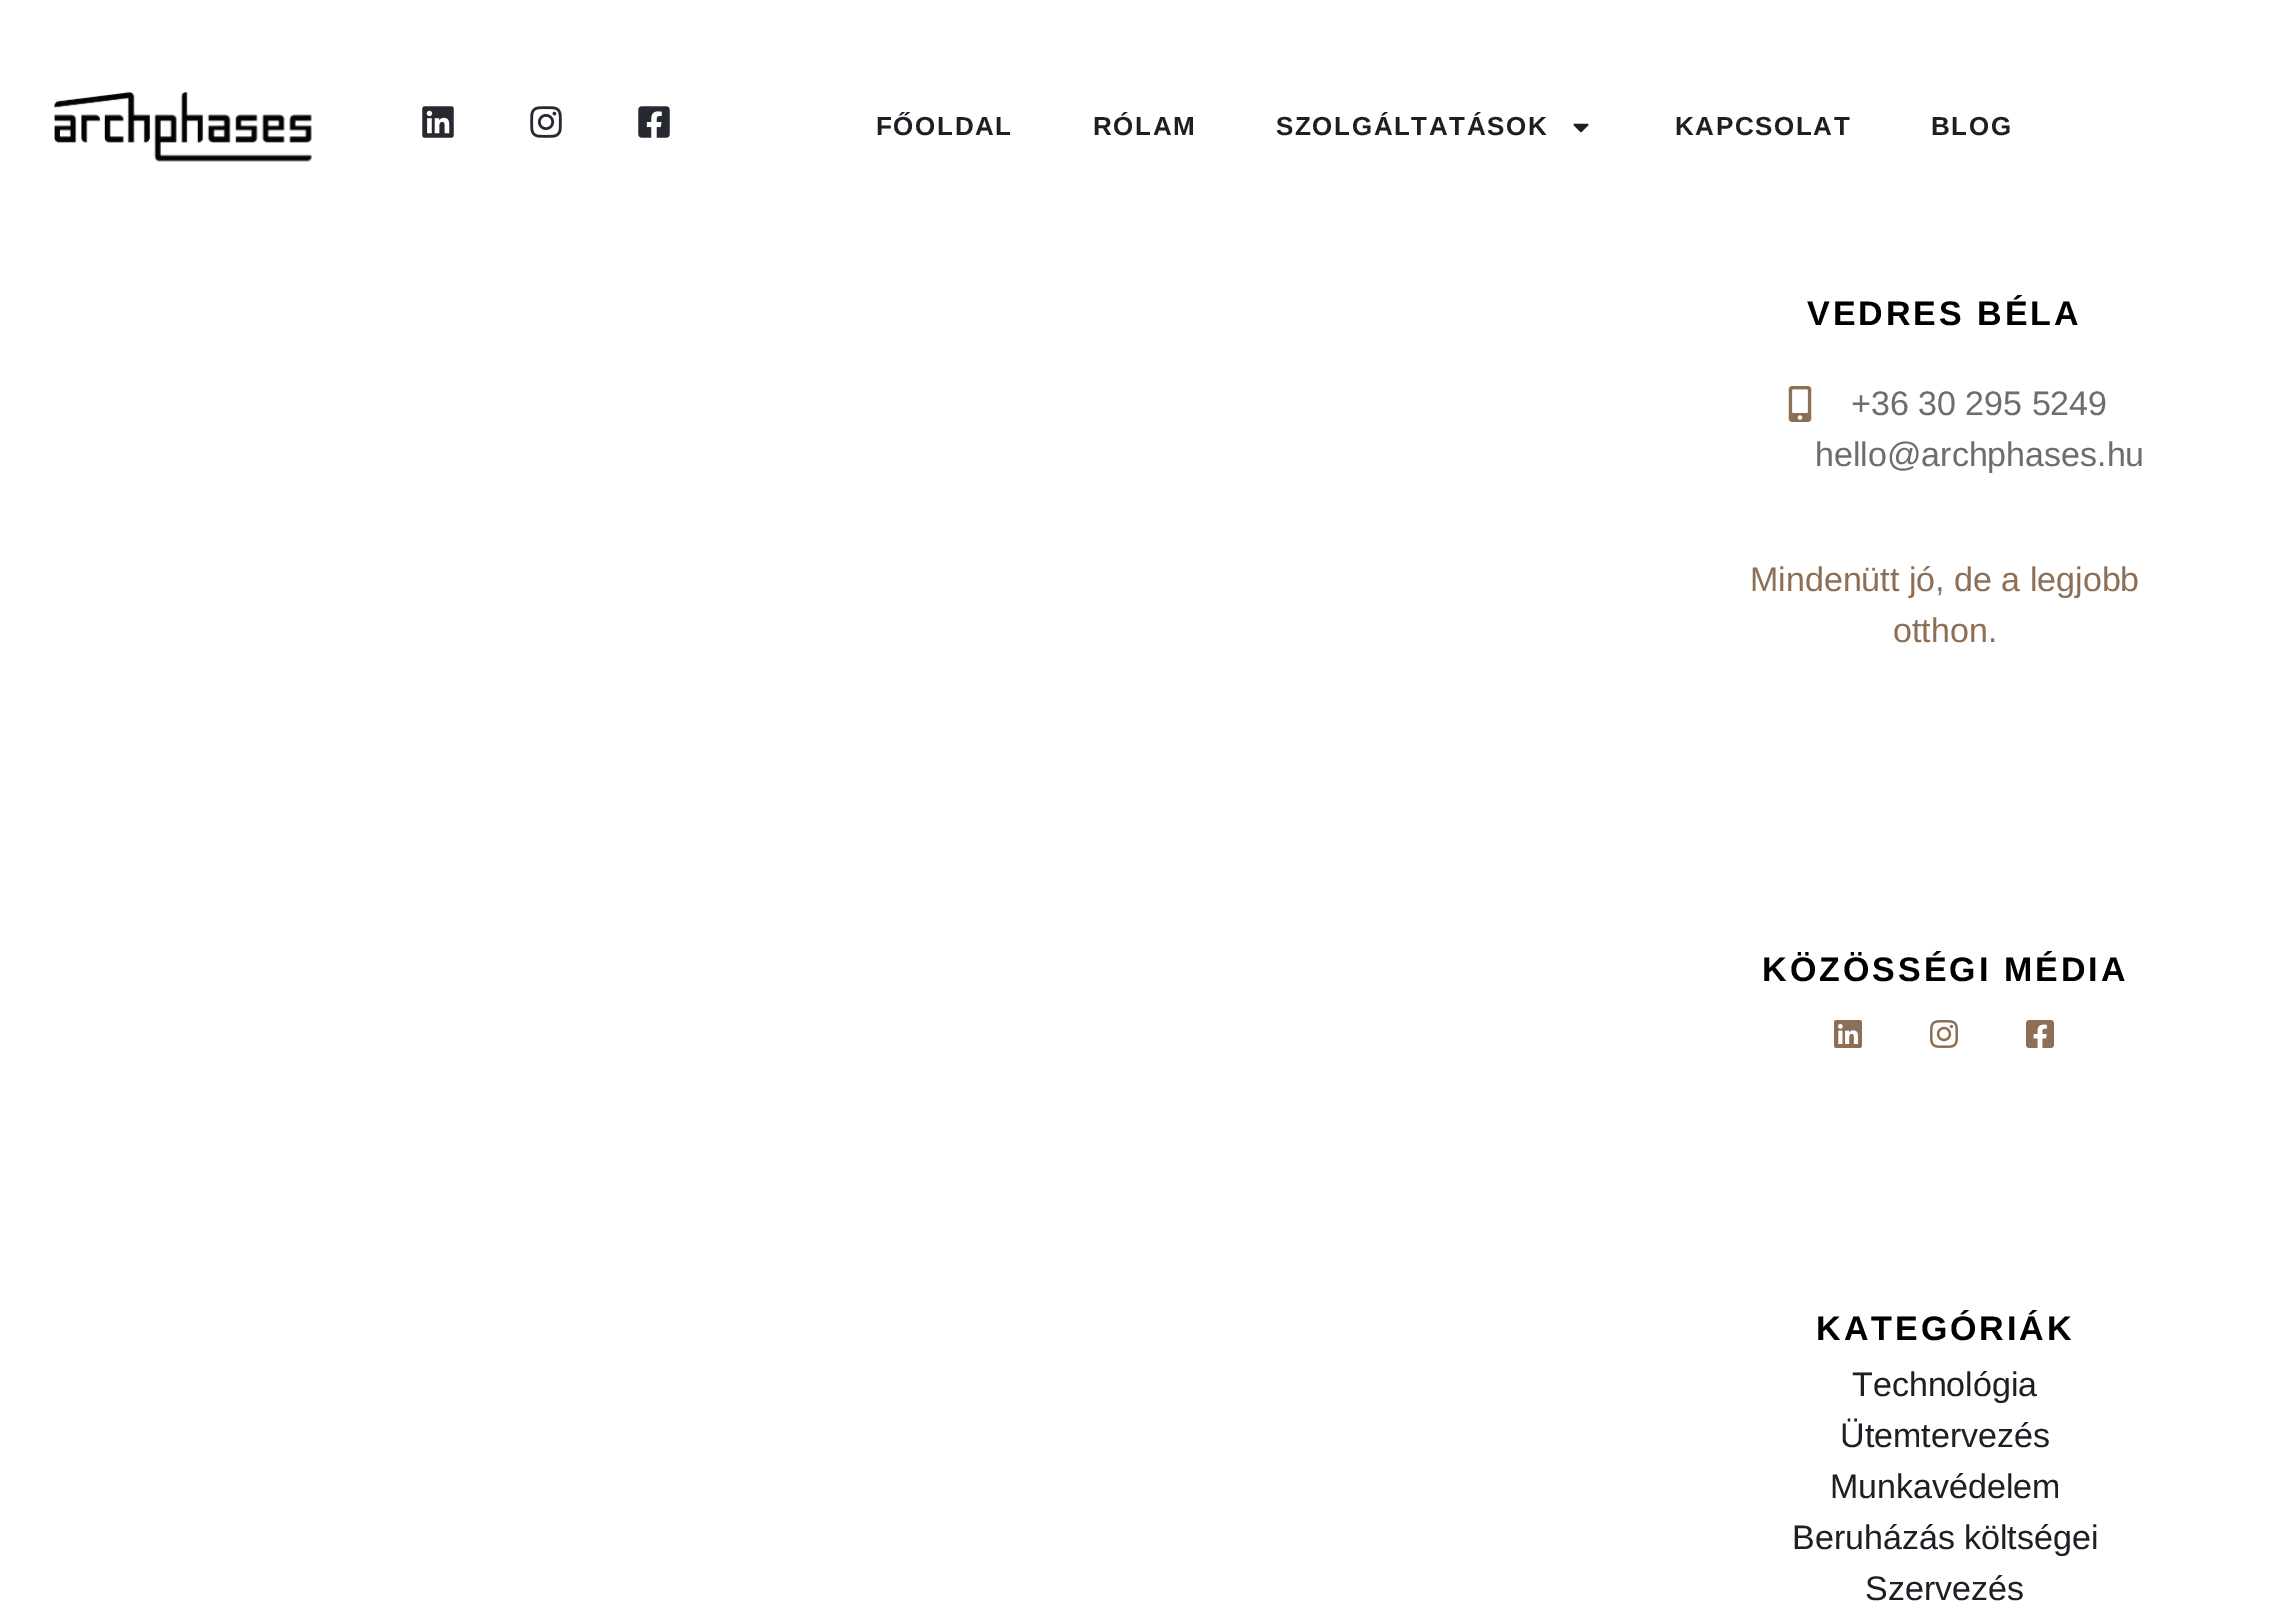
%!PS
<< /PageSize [2288 1613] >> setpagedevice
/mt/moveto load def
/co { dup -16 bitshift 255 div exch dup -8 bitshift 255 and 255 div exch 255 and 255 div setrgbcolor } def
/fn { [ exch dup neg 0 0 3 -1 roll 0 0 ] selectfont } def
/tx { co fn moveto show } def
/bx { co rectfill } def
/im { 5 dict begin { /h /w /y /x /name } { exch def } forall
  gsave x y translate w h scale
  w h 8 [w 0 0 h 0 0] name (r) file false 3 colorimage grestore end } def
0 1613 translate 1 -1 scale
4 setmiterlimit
0 0 2288 1613 16#FFFFFF bx
(media/1.raw) 54 92 258 70 im
(media/2.raw) 422 106 32 32 im
(media/3.raw) 530 106 32 32 im
(media/4.raw) 638 106 32 32 im
(media/5.raw) 1573 123 16 10 im
(media/6.raw) 1788 386 24 36 im
(media/7.raw) 1834 1020 28 28 im
(media/8.raw) 1930 1020 28 28 im
(media/9.raw) 2026 1020 28 28 im
/LiberationSans-Bold 26 fn
16#1D1F25 co
876 135 mt 1.6 0 (FŐOLDAL) ashow
1093 135 mt 1.6 0 (RÓLAM) ashow
1276 135 mt 1.6 0 (SZOLGÁLTATÁSOK) ashow
1675 135 mt 1.6 0 (KAPCSOLAT) ashow
1931 135 mt 1.6 0 (BLOG) ashow
/LiberationSans-Bold 34 fn
16#000000 co
1807 325 mt 3 0 (VEDRES BÉLA) ashow
(+36 30 295 5249) 1851 415 /LiberationSans-Regular 34 16#6C6D70 tx
(hello@archphases.hu) 1815 466 /LiberationSans-Regular 34 16#6C6D70 tx
(Mindenütt jó, de a legjobb) 1750 591 /LiberationSans-Regular 34 16#8D6F55 tx
(otthon.) 1893 642 /LiberationSans-Regular 34 16#8D6F55 tx
/LiberationSans-Bold 34 fn
16#000000 co
1762 981 mt 3 0 (KÖZÖSSÉGI MÉDIA) ashow
1816 1340 mt 3 0 (KATEGÓRIÁK) ashow
(Technológia) 1852 1396 /LiberationSans-Regular 34 16#1D1F25 tx
(Ütemtervezés) 1840 1447 /LiberationSans-Regular 34 16#1D1F25 tx
(Munkavédelem) 1830 1498 /LiberationSans-Regular 34 16#1D1F25 tx
(Beruházás költségei) 1792 1549 /LiberationSans-Regular 34 16#1D1F25 tx
(Szervezés) 1865 1600 /LiberationSans-Regular 34 16#1D1F25 tx
showpage
